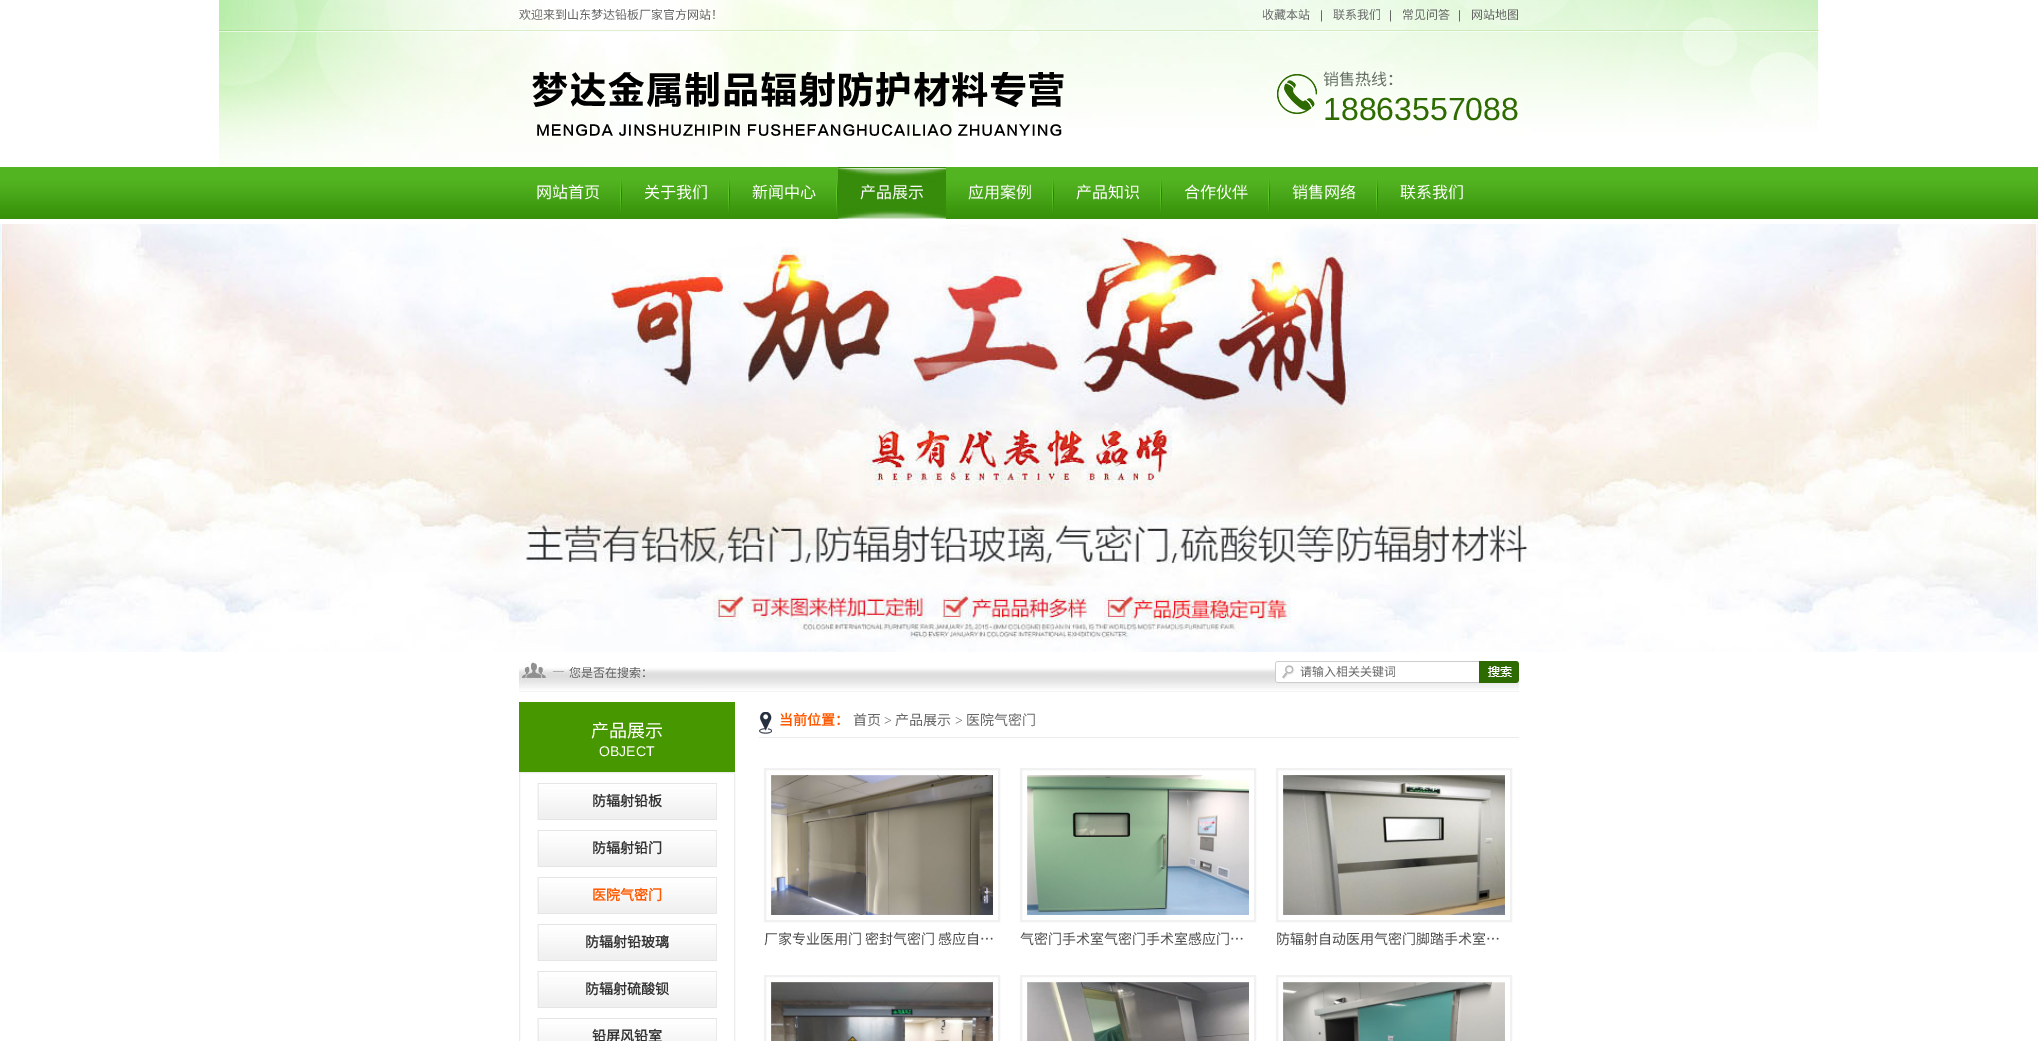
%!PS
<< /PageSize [2038 1041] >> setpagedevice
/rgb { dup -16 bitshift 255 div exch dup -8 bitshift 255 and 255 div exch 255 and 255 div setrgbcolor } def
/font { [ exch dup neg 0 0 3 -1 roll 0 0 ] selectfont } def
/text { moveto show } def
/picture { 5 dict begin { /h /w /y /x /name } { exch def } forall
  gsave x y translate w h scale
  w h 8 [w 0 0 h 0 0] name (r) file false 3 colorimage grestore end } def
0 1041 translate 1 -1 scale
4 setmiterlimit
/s1 { /NotoSansCJKSC-Regular 12 font 16#666666 rgb } def
/s2 { /LiberationSans-Regular 12 font 16#666666 rgb } def
/s3 { /NotoSansCJKSC-Regular 16 font 16#657065 rgb } def
/s4 { /LiberationSans-Regular 32 font 16#2D6B00 rgb } def
/s5 { /NotoSansCJKSC-Regular 16 font 16#FFFFFF rgb } def
/s6 { /NotoSansCJKSC-Regular 12 font 16#5F5F5F rgb } def
/s7 { /NotoSansCJKSC-Regular 18 font 16#FFFFFF rgb } def
/s8 { /LiberationSans-Regular 14 font 16#FFFFFF rgb } def
/s9 { /NotoSansCJKSC-Bold 14 font 16#333333 rgb } def
/s10 { /NotoSansCJKSC-Bold 14 font 16#FF5A00 rgb } def
/s11 { /NotoSansCJKSC-Regular 14 font 16#666666 rgb } def
/s12 { /LiberationSerif-Regular 14 font 16#666666 rgb } def
/s13 { /NotoSansCJKSC-Regular 14 font 16#4C4C4C rgb } def
16#FFFFFF rgb
0 0 2038 1041 rectfill
(pic1.raw) 219 0 1600 167 picture
s1
(欢迎来到山东梦达铅板厂家官方网站！) 519 19 text
(收藏本站) 1262 19 text
s2
(|) 1320 19 text
s1
(联系我们) 1333 19 text
s2
(|) 1389 19 text
s1
(常见问答) 1402 19 text
s2
(|) 1458 19 text
s1
(网站地图) 1471 19 text
(pic2.raw) 532 71 532 65 picture
(pic3.raw) 1277 74 40 40 picture
s3
(销售热线：) 1323 85 text
s4
(18863557088) 1323 120 text
(pic4.raw) 0 167 2038 52 picture
(pic5.raw) 620 180 2 32 picture
s5
(网站首页) 536 198 text
(pic5.raw) 728 180 2 32 picture
(关于我们) 644 198 text
(pic5.raw) 836 180 2 32 picture
(新闻中心) 752 198 text
(pic6.raw) 838 167 108 52 picture
(产品展示) 860 198 text
(pic5.raw) 1052 180 2 32 picture
(应用案例) 968 198 text
(pic5.raw) 1160 180 2 32 picture
(产品知识) 1076 198 text
(pic5.raw) 1268 180 2 32 picture
(合作伙伴) 1184 198 text
(pic5.raw) 1376 180 2 32 picture
(销售网络) 1292 198 text
(联系我们) 1400 198 text
(pic7.raw) 0 224 2038 428 picture
(pic8.raw) 519 661 1000 31 picture
s6
(您是否在搜索：) 569 677 text
(pic9.raw) 1275 661 244 22 picture
s1
(请输入相关关键词) 1300 676 text
16#479700 rgb
519 702 216 70 rectfill
s7
(产品展示) 591 737 text
s8
(OBJECT) 599 756 text
16#ECECEC rgb
519.5 772.5 215 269 rectstroke
(pic10.raw) 537 783 180 37 picture
s9
(防辐射铅板) 592 806 text
(pic10.raw) 537 830 180 37 picture
(防辐射铅门) 592 853 text
(pic10.raw) 537 877 180 37 picture
s10
(医院气密门) 592 900 text
(pic10.raw) 537 924 180 37 picture
s9
(防辐射铅玻璃) 585 947 text
(pic10.raw) 537 971 180 37 picture
(防辐射硫酸钡) 585 994 text
(pic11.raw) 537 1018 180 23 picture
(铅屏风铅室) 592 1041 text
(pic12.raw) 759 712 13 22 picture
16#ECECEC rgb
759 737 760 1 rectfill
s10
(当前位置：) 779 725 text
s11
(首页) 853 725 text
s12
(>) 884 725 text
s11
(产品展示) 895 725 text
s12
(>) 955 725 text
s11
(医院气密门) 966 725 text
16#F1F1F1 rgb
2 setlinewidth
765 769 234 152 rectstroke
(pic13.raw) 771 775 222 140 picture
s13
(厂家专业医用门 密封气密门 感应自…) 764 944 text
16#F1F1F1 rgb
1021 769 234 152 rectstroke
(pic14.raw) 1027 775 222 140 picture
s13
(气密门手术室气密门手术室感应门…) 1020 944 text
16#F1F1F1 rgb
1277 769 234 152 rectstroke
(pic15.raw) 1283 775 222 140 picture
s13
(防辐射自动医用气密门脚踏手术室…) 1276 944 text
16#F1F1F1 rgb
765 976 234 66 rectstroke
(pic16.raw) 771 982 222 59 picture
1021 976 234 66 rectstroke
(pic17.raw) 1027 982 222 59 picture
1277 976 234 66 rectstroke
(pic18.raw) 1283 982 222 59 picture
showpage
